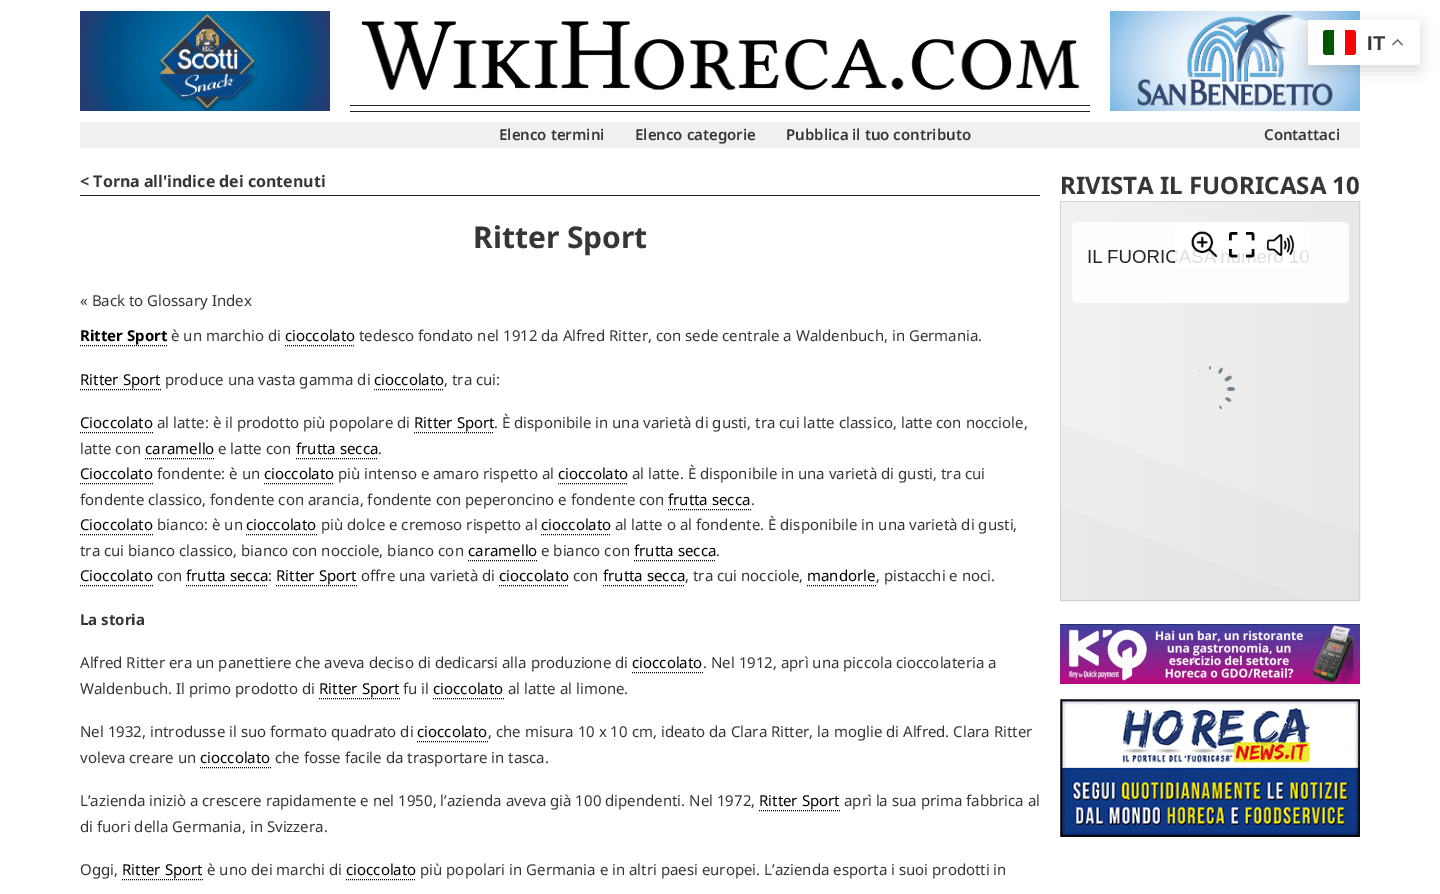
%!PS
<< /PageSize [1440 894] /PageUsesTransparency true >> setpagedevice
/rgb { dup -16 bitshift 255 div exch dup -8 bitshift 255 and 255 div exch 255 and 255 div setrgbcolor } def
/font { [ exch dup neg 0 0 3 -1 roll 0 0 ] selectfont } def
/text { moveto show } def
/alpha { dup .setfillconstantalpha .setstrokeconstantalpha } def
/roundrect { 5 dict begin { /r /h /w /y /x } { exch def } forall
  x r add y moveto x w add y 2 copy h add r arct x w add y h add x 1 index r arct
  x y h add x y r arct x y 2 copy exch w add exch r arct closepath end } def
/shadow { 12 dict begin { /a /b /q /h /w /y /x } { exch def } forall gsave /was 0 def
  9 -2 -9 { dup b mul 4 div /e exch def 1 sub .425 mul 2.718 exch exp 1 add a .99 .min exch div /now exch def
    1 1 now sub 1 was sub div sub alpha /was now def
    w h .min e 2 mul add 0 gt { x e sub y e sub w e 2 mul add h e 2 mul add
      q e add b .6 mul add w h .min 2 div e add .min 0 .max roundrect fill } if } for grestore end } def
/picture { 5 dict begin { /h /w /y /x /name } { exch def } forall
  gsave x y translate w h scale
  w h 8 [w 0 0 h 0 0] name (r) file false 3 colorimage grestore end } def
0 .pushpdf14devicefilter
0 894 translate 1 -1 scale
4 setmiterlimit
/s1 { /LiberationSans-Bold 20 font 16#363636 rgb } def
/s2 { /NotoSans-SemiBold 15 font 16#363636 rgb } def
/s3 { /NotoSans-Bold 16 font 16#363636 rgb } def
/s4 { /NotoSans-Bold 30 font 16#363636 rgb } def
/s5 { /NotoSans-Regular 15 font 16#363636 rgb } def
/s6 { /NotoSans-Bold 15 font 16#000000 rgb } def
/s7 { /NotoSans-Regular 15 font 16#000000 rgb } def
/s8 { /NotoSans-Bold 15 font 16#363636 rgb } def
/s9 { /NotoSans-Bold 24 font 16#363636 rgb } def
16#FFFFFF rgb
0 0 1440 894 rectfill
(pic4.raw) 1110 11 250 100 picture
16#000000 rgb
1308 25 112 45 2 7.5 0.15 shadow
16#FFFFFF rgb
1308 20 112 45 2 roundrect fill
16#005700 rgb
1326 30 moveto 1334 30 lineto 1334 55 lineto 1326 55 lineto 1324.5 55 1323 53.5 1323 52 curveto 1323 33 lineto 1323 31.5 1324.5 30 1326 30 curveto closepath fill
16#FC0000 rgb
1345 30 moveto 1353 30 lineto 1354.5 30 1356 31.5 1356 33 curveto 1356 52 lineto 1356 53.5 1354.5 55 1353 55 curveto 1345 55 lineto closepath fill
s1
(IT) 1367 50 text
(pic1.raw) 1392 39 11 7 picture
(pic2.raw) 80 11 250 100 picture
(pic3.raw) 361 21 719 69 picture
16#212121 rgb
350 105 740 1 rectfill
350 111 740 1 rectfill
16#F0F0F0 rgb
80 122 1280 26 rectfill
s2
(Elenco termini) 499 140 text
(Elenco categorie) 635 140 text
(Pubblica il tuo contributo) 786 140 text
(Contattaci) 1264 140 text
s3
(< Torna all'indice dei contenuti) 80 187 text
16#212121 rgb
80 195 960 1 rectfill
s4
(Ritter Sport) 473 248 text
s5
(« Back to Glossary Index) 80 306 text
s6
(Ritter Sport) 80 341 text
[1 1] 0 setdash
80 345.5 moveto 167 345.5 lineto stroke
s5
(è un marchio di) 171 341 text
s7
(cioccolato) 285 341 text
285 345.5 moveto 355 345.5 lineto stroke
s5
(tedesco fondato nel 1912 da Alfred Ritter, con sede centrale a Waldenbuch, in Germania.) 359 341 text
s7
(Ritter Sport) 80 385 text
80 389.5 moveto 161 389.5 lineto stroke
s5
(produce una vasta gamma di) 165 385 text
s7
(cioccolato) 374 385 text
374 389.5 moveto 444 389.5 lineto stroke
s5
(, tra cui:) 444 385 text
s7
(Cioccolato) 80 428 text
80 432.5 moveto 153 432.5 lineto stroke
s5
(al latte: è il prodotto più popolare di) 157 428 text
s7
(Ritter Sport) 414 428 text
414 432.5 moveto 494 432.5 lineto stroke
s5
(. È disponibile in una varietà di gusti, tra cui latte classico, latte con nocciole,) 494 428 text
(latte con) 80 454 text
s7
(caramello) 145 454 text
145 458.5 moveto 214 458.5 lineto stroke
s5
(e latte con) 218 454 text
s7
(frutta secca) 296 454 text
296 458.5 moveto 378 458.5 lineto stroke
s5
(.) 378 454 text
s7
(Cioccolato) 80 479 text
80 483.5 moveto 153 483.5 lineto stroke
s5
(fondente: è un) 157 479 text
s7
(cioccolato) 264 479 text
264 483.5 moveto 334 483.5 lineto stroke
s5
(più intenso e amaro rispetto al) 338 479 text
s7
(cioccolato) 558 479 text
558 483.5 moveto 628 483.5 lineto stroke
s5
(al latte. È disponibile in una varietà di gusti, tra cui) 632 479 text
(fondente classico, fondente con arancia, fondente con peperoncino e fondente con) 80 505 text
s7
(frutta secca) 668 505 text
668 509.5 moveto 751 509.5 lineto stroke
s5
(.) 751 505 text
s7
(Cioccolato) 80 530 text
80 534.5 moveto 153 534.5 lineto stroke
s5
(bianco: è un) 157 530 text
s7
(cioccolato) 246 530 text
246 534.5 moveto 317 534.5 lineto stroke
s5
(più dolce e cremoso rispetto al) 321 530 text
s7
(cioccolato) 541 530 text
541 534.5 moveto 611 534.5 lineto stroke
s5
(al latte o al fondente. È disponibile in una varietà di gusti,) 615 530 text
(tra cui bianco classico, bianco con nocciole, bianco con) 80 556 text
s7
(caramello) 468 556 text
468 560.5 moveto 537 560.5 lineto stroke
s5
(e bianco con) 541 556 text
s7
(frutta secca) 634 556 text
634 560.5 moveto 716 560.5 lineto stroke
s5
(.) 716 556 text
s7
(Cioccolato) 80 581 text
80 585.5 moveto 153 585.5 lineto stroke
s5
(con) 157 581 text
s7
(frutta secca) 186 581 text
186 585.5 moveto 268 585.5 lineto stroke
s5
(:) 268 581 text
s7
(Ritter Sport) 276 581 text
276 585.5 moveto 357 585.5 lineto stroke
s5
(offre una varietà di) 361 581 text
s7
(cioccolato) 499 581 text
499 585.5 moveto 569 585.5 lineto stroke
s5
(con) 573 581 text
s7
(frutta secca) 603 581 text
603 585.5 moveto 685 585.5 lineto stroke
s5
(, tra cui nocciole,) 685 581 text
s7
(mandorle) 807 581 text
807 585.5 moveto 876 585.5 lineto stroke
s5
(, pistacchi e noci.) 876 581 text
s8
(La storia) 80 625 text
s5
(Alfred Ritter era un panettiere che aveva deciso di dedicarsi alla produzione di) 80 668 text
s7
(cioccolato) 632 668 text
632 672.5 moveto 703 672.5 lineto stroke
s5
(. Nel 1912, aprì una piccola cioccolateria a) 703 668 text
(Waldenbuch. Il primo prodotto di) 80 694 text
s7
(Ritter Sport) 319 694 text
319 698.5 moveto 400 698.5 lineto stroke
s5
(fu il) 403 694 text
s7
(cioccolato) 433 694 text
433 698.5 moveto 504 698.5 lineto stroke
s5
(al latte al limone.) 508 694 text
(Nel 1932, introdusse il suo formato quadrato di) 80 737 text
s7
(cioccolato) 417 737 text
417 741.5 moveto 488 741.5 lineto stroke
s5
(, che misura 10 x 10 cm, ideato da Clara Ritter, la moglie di Alfred. Clara Ritter) 488 737 text
(voleva creare un) 80 763 text
s7
(cioccolato) 200 763 text
200 767.5 moveto 271 767.5 lineto stroke
s5
(che fosse facile da trasportare in tasca.) 275 763 text
(L’azienda iniziò a crescere rapidamente e nel 1950, l’azienda aveva già 100 dipendenti. Nel 1972,) 80 806 text
s7
(Ritter Sport) 759 806 text
759 810.5 moveto 840 810.5 lineto stroke
s5
(aprì la sua prima fabbrica al) 844 806 text
(di fuori della Germania, in Svizzera.) 80 832 text
(Oggi,) 80 875 text
s7
(Ritter Sport) 122 875 text
122 879.5 moveto 203 879.5 lineto stroke
s5
(è uno dei marchi di) 207 875 text
s7
(cioccolato) 346 875 text
346 879.5 moveto 416 879.5 lineto stroke
s5
(più popolari in Germania e in altri paesi europei. L’azienda esporta i suoi prodotti in) 420 875 text
s9
(RIVISTA IL FUORICASA 10) 1060 194 text
16#D3D3D3 rgb
[] 0 setdash
1060.5 201.5 299 399 rectstroke
(pic5.raw) 1061 202 298 398 picture
(pic6.raw) 1060 624 300 60 picture
(pic7.raw) 1060 699 300 138 picture
.poppdf14devicefilter showpage
